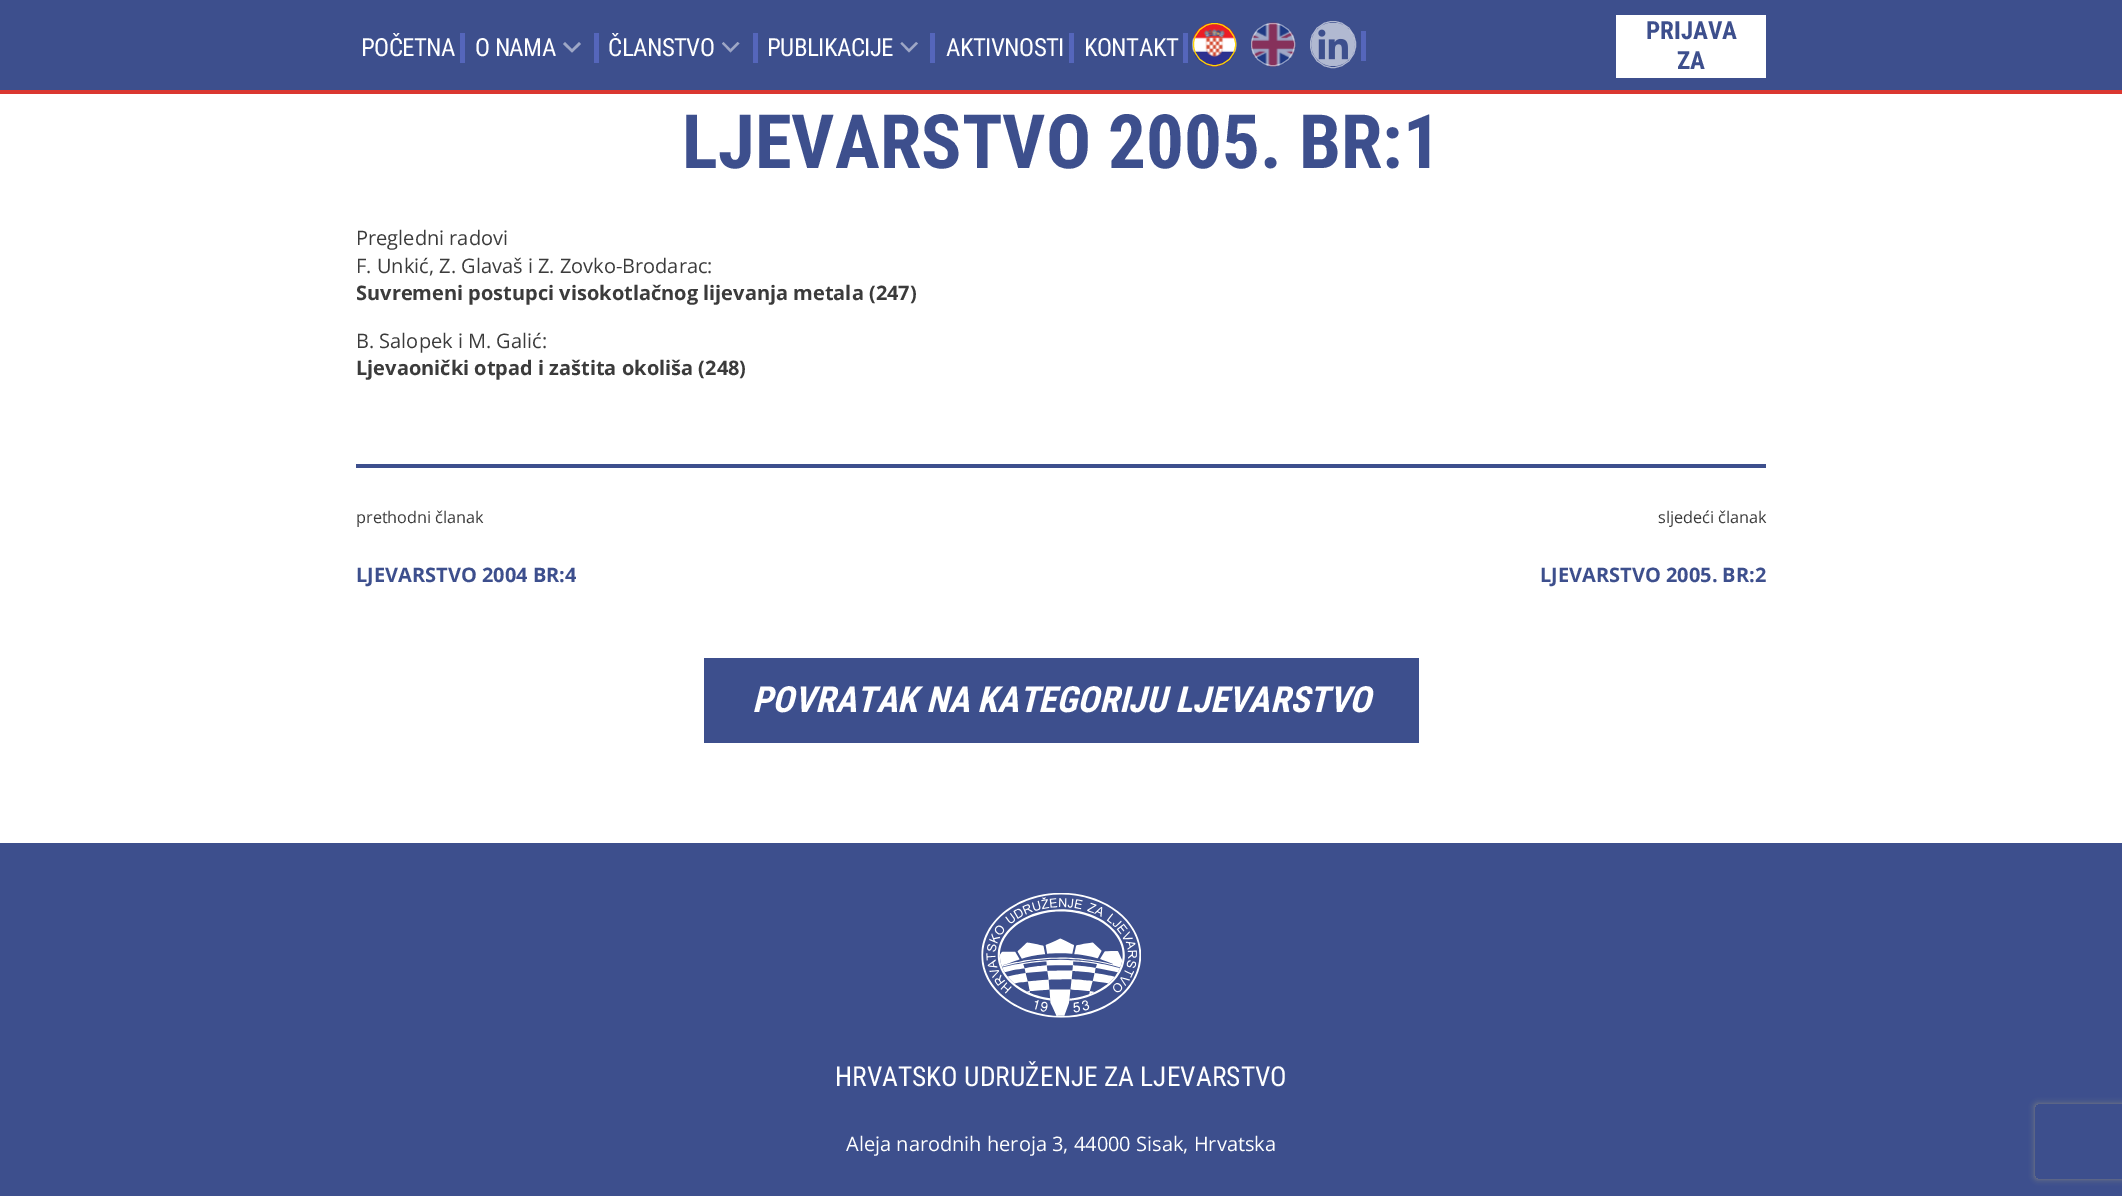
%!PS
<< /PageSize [2122 1196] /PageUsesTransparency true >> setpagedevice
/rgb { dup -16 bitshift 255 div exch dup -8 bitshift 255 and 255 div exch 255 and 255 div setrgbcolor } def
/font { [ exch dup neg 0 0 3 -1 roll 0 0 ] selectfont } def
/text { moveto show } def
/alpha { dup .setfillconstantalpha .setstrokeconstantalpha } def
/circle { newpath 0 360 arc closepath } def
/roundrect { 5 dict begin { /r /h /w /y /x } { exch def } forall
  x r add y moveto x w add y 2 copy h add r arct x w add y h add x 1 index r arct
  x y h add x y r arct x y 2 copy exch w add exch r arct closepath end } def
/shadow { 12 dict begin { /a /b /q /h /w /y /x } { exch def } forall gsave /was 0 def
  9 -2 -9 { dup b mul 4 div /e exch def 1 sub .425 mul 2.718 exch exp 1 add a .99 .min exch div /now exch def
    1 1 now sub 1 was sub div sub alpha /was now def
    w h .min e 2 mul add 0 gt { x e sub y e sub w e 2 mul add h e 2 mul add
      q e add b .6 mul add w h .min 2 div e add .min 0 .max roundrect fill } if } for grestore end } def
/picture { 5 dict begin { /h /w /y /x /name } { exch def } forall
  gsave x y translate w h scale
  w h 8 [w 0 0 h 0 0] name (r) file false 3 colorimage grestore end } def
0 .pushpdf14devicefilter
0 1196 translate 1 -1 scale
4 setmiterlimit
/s1 { /RobotoCondensed-Bold 25 font 16#3D4F8D rgb } def
/s2 { /RobotoCondensed-Bold 75 font 16#3D4F8D rgb } def
/s3 { /OpenSans-Regular 20 font 16#3B3B3B rgb } def
/s4 { /OpenSans-Bold 20 font 16#3B3B3B rgb } def
/s5 { /OpenSans-Regular 16.25 font 16#3B3B3B rgb } def
/s6 { /OpenSans-Bold 20 font 16#3D4F8D rgb } def
/s7 { /RobotoCondensed-BoldItalic 36 font 16#FFFFFF rgb } def
/s8 { /RobotoCondensed-Regular 27.5 font 16#FFFFFF rgb } def
/s9 { /OpenSans-Regular 20 font 16#FFFFFF rgb } def
16#FFFFFF rgb
0 0 2122 1196 rectfill
16#3D4F8D rgb
0 0 2122 90 rectfill
16#DA3731 rgb
0 90 2122 4 rectfill
16#5566BB rgb
460 33 5 30 rectfill
/RobotoCondensed-Regular 25 font
16#FFFFFF rgb
361 56 moveto -0.6 0 (POČETNA) ashow
16#5566BB rgb
594 33 5 30 rectfill
16#FFFFFF rgb
475 56 moveto -0.6 0 (O NAMA) ashow
16#9EA7C6 rgb
581 44 moveto 572 52.5 lineto 572 49 lineto 579 42 lineto closepath 572 52.5 moveto 563 44 lineto 565 42 lineto 572 49 lineto closepath fill
16#5566BB rgb
753 33 5 30 rectfill
16#FFFFFF rgb
608 56 moveto -0.6 0 (ČLANSTVO) ashow
16#9EA7C6 rgb
739.5 43.5 moveto 730.5 52.5 lineto 730.5 49 lineto 737.5 42 lineto closepath fill
0.5 alpha
16#FFFFFF rgb
730.5 52.5 moveto 722 43.5 lineto 723.5 42 lineto 730.5 49 lineto closepath fill
1 alpha
16#5566BB rgb
930 33 5 30 rectfill
16#FFFFFF rgb
767 56 moveto -0.6 0 (PUBLIKACIJE) ashow
16#9EA7C6 rgb
918 43.5 moveto 909 52.5 lineto 909 49 lineto 916 42 lineto closepath 909 52.5 moveto 900.5 43.5 lineto 902 42 lineto 909 49 lineto closepath fill
16#5566BB rgb
1069 33 5 30 rectfill
16#FFFFFF rgb
946 56 moveto -0.6 0 (AKTIVNOSTI) ashow
16#5566BB rgb
1183 33 5 30 rectfill
16#FFFFFF rgb
1084 56 moveto -0.6 0 (KONTAKT) ashow
(pic1.raw) 1192 22 45 45 picture
16#FFD700 rgb
1214.5 44.5 21 circle stroke
(pic2.raw) 1251 22 45 45 picture
0.5 alpha
16#FFFFFF rgb
1251.5 23.5 43 42 21 roundrect stroke
1 alpha
16#5566BB rgb
1361 31 5 30 rectfill
(pic3.raw) 1311 23 44 43 picture
0.6 alpha
16#FFFFFF rgb
1310.5 21.5 45 46 22.5 roundrect stroke
1 alpha
1616 15 150 63 rectfill
s1
(PRIJAVA) 1646 39 text
(ZA) 1677 69 text
s2
(LJEVARSTVO 2005. BR:1) 682 168 text
s3
(Pregledni radovi) 356 245 text
(F. Unkić, Z. Glavaš i Z. Zovko-Brodarac:) 356 273 text
s4
(Suvremeni postupci visokotlačnog lijevanja metala \(247\)) 356 300 text
s3
(B. Salopek i M. Galić:) 356 348 text
s4
(Ljevaonički otpad i zaštita okoliša \(248\)) 356 375 text
16#3D4F8D rgb
356 464 1410 4 rectfill
s5
(prethodni članak) 356 523 text
s6
(LJEVARSTVO 2004 BR:4) 356 582 text
s5
(sljedeći članak) 1658 523 text
s6
(LJEVARSTVO 2005. BR:2) 1540 582 text
704 658 715 85 rectfill
s7
(POVRATAK NA KATEGORIJU LJEVARSTVO) 752 712 text
16#3D4F8D rgb
0 843 2122 353 rectfill
(pic4.raw) 981 893 160 125 picture
s8
(HRVATSKO UDRUŽENJE ZA LJEVARSTVO) 835 1086 text
s9
(Aleja narodnih heroja 3, 44000 Sisak, Hrvatska) 846 1151 text
gsave
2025 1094 moveto 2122 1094 lineto 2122 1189 lineto 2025 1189 lineto closepath 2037.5 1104 moveto 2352.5 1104 lineto 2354 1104 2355 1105 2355 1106.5 curveto 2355 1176.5 lineto 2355 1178 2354 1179 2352.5 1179 curveto 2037.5 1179 lineto 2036 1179 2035 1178 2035 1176.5 curveto 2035 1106.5 lineto 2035 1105 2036 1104 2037.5 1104 curveto closepath eoclip newpath
16#808080 rgb
2035 1104 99 75 2.5 3 1 shadow
grestore
.poppdf14devicefilter showpage
